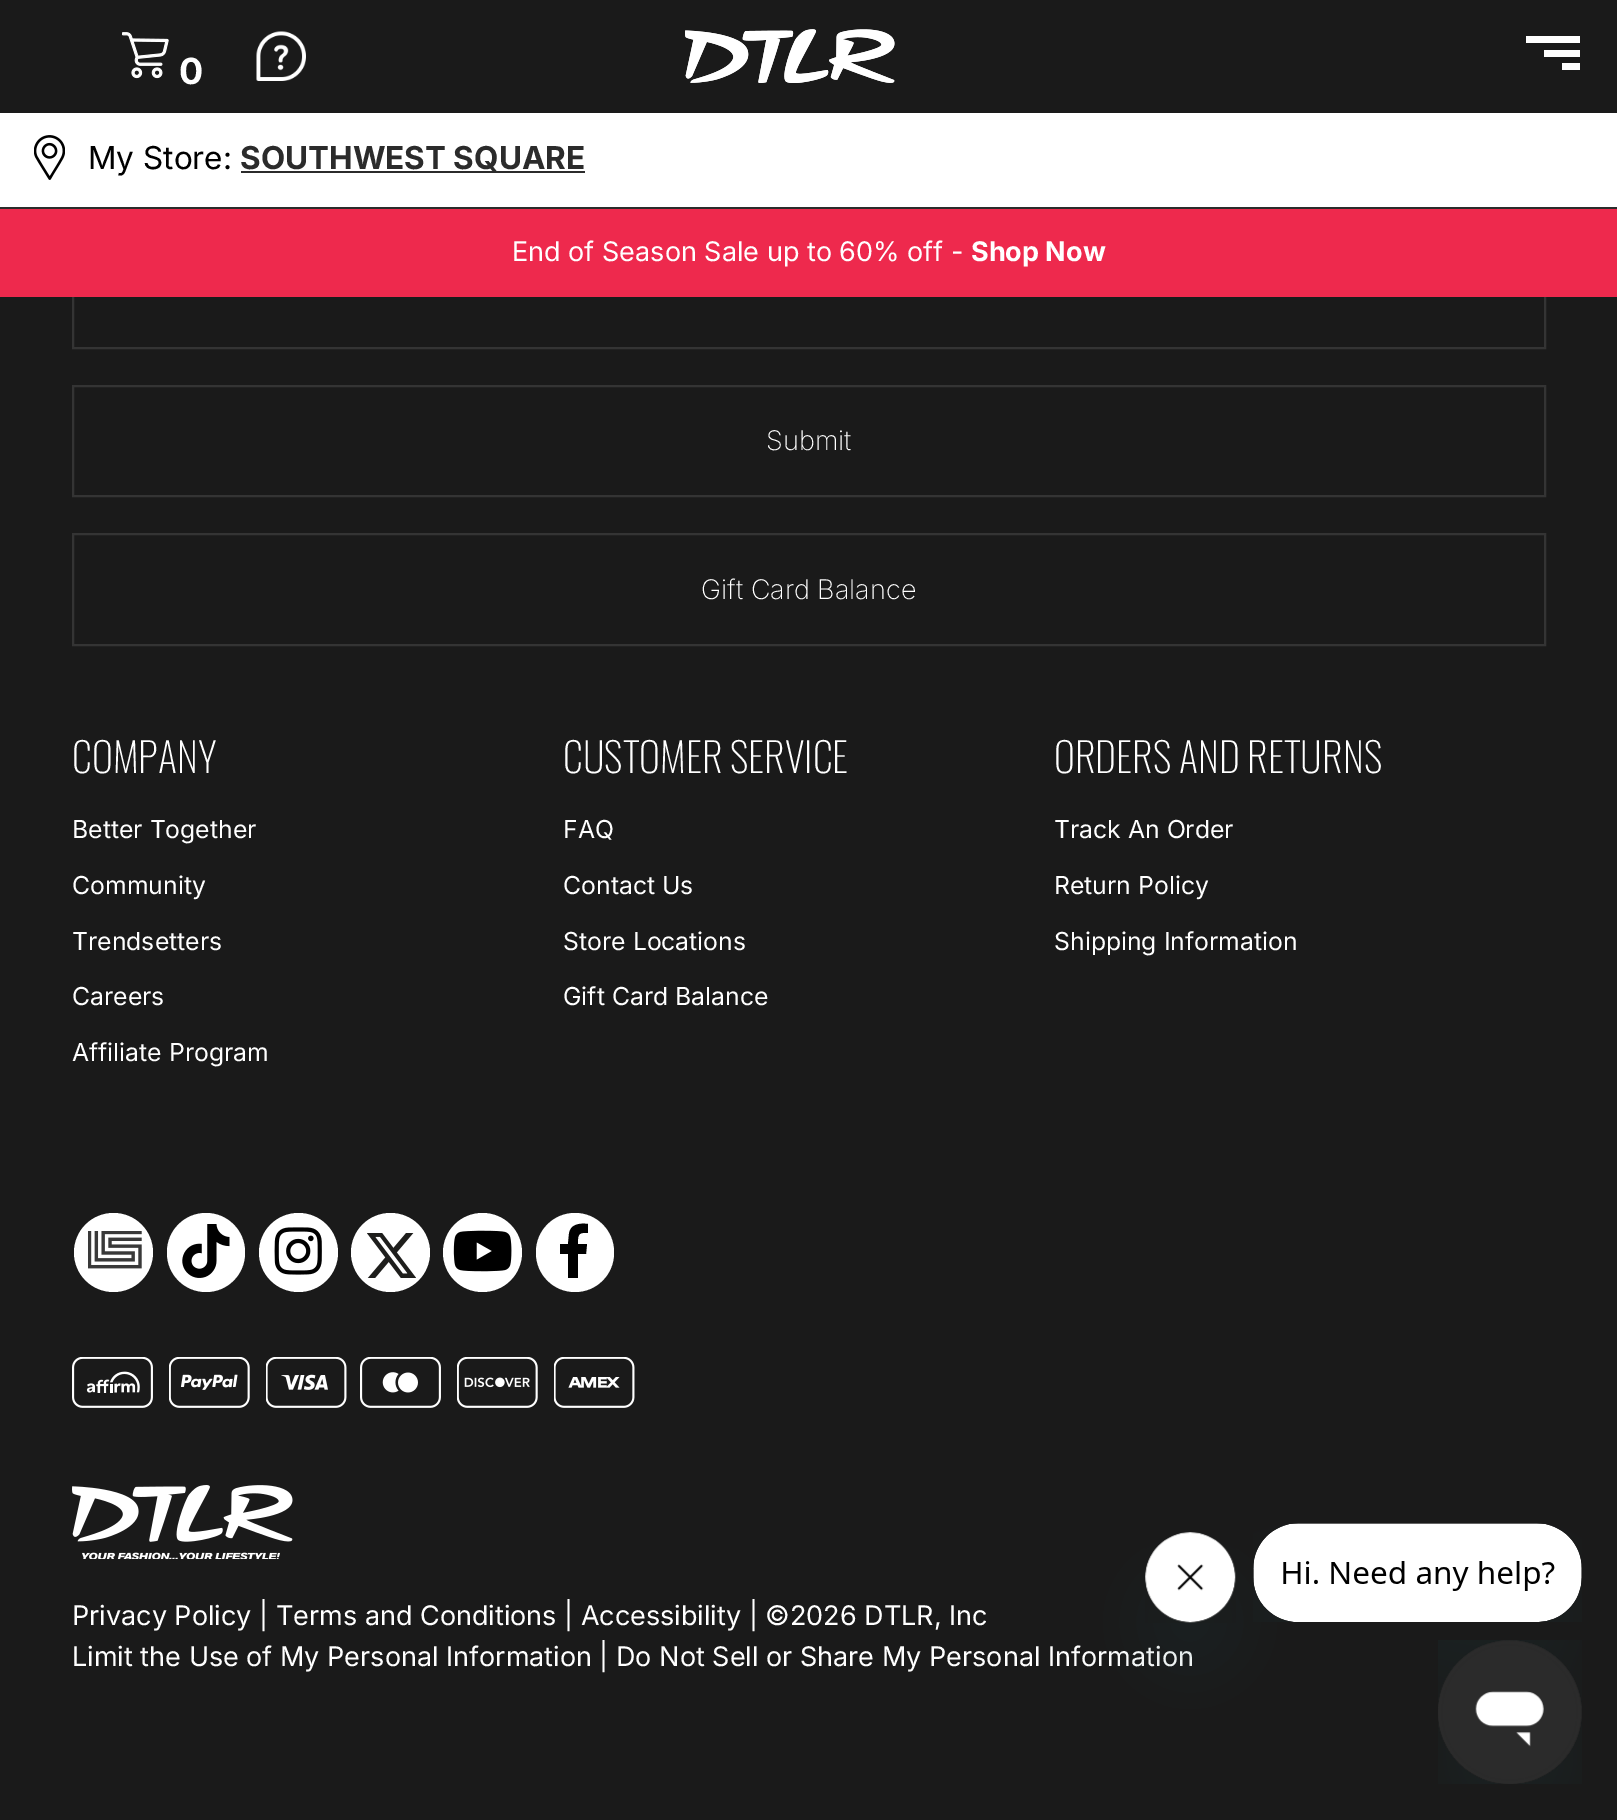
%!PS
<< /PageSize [1617 1820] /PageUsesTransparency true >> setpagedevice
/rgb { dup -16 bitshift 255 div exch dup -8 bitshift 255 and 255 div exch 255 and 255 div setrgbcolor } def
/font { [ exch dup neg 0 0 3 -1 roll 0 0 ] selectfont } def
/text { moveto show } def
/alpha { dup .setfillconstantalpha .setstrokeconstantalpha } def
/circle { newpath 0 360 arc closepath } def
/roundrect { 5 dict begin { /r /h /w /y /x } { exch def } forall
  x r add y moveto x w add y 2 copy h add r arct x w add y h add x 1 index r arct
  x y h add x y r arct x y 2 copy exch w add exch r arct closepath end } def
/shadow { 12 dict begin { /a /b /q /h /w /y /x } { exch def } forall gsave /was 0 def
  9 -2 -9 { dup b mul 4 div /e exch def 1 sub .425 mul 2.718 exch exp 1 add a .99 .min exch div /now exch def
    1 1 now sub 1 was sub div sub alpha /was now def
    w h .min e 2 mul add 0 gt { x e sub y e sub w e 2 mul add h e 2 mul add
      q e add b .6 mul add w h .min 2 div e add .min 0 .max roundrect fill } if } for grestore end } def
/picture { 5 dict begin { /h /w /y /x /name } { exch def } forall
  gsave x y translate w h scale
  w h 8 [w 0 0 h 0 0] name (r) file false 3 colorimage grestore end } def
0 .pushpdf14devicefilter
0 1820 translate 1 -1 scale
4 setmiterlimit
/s1 { /Inter-Bold 36 font 16#FFFFFF rgb } def
/s2 { /Inter-Regular 31.5 font 16#000000 rgb } def
/s3 { /Inter-Bold 31.5 font 16#2B2B2B rgb } def
/s4 { /Inter-Regular 27 font 16#FFFFFF rgb } def
/s5 { /Inter-Bold 27 font 16#FFFFFF rgb } def
/s6 { /Inter-ExtraLight 27 font 16#FFFFFF rgb } def
/s7 { /Oswald-ExtraLight 40.5 font 16#FFFFFF rgb } def
/s8 { /Inter-Regular 24.75 font 16#FFFFFF rgb } def
16#1A1A1A rgb
0 0 1617 1820 rectfill
16#FFFFFF rgb
0 113 1617 94 rectfill
(pic1.raw) 122 32 47 47 picture
s1
(0) 179 84 text
(pic2.raw) 256 31 50 50 picture
(pic3.raw) 685 29 210 54 picture
1526 36 54 7 rectfill
1544 50 36 7 rectfill
1562 63 18 7 rectfill
16#2B2B2B rgb
0 207 1617 2 rectfill
(pic4.raw) 34 135 31 45 picture
s2
(My Store:) 88 169 text
s3
(SOUTHWEST SQUARE) 240 169 text
241 171 344 2 rectfill
16#343434 rgb
2 setlinewidth
73 237 1472 111 rectstroke
16#EE294D rgb
0 209 1617 88 rectfill
s4
(End of Season Sale up to 60% off -) 512 261 text
s5
(Shop Now) 971 261 text
16#343434 rgb
73 386 1472 110 rectstroke
s6
(Submit) 766 450 text
16#343434 rgb
73 534 1472 111 rectstroke
s6
(Gift Card Balance) 701 599 text
s7
(COMPANY) 72 773 text
s8
(Better Together) 72 838 text
(Community) 72 894 text
(Trendsetters) 72 950 text
(Careers) 72 1005 text
(Affiliate Program) 72 1061 text
s7
(CUSTOMER SERVICE) 563 773 text
s8
(FAQ) 563 838 text
(Contact Us) 563 894 text
(Store Locations) 563 950 text
(Gift Card Balance) 563 1005 text
s7
(ORDERS AND RETURNS) 1054 773 text
s8
(Track An Order) 1054 838 text
(Return Policy) 1054 894 text
(Shipping Information) 1054 950 text
113.5 1252.5 39.5 circle fill
(pic5.raw) 88 1231 54 38 picture
167 1213 78 79 39 roundrect fill
(pic6.raw) 182 1224 48 54 picture
298.5 1252.5 39.5 circle fill
(pic7.raw) 274 1227 48 48 picture
390.5 1252.5 39.5 circle fill
(pic8.raw) 367 1233 49 45 picture
482.5 1252.5 39.5 circle fill
(pic9.raw) 453 1230 59 42 picture
536 1213 78 79 39 roundrect fill
16#000000 rgb
583 1233 moveto 577 1233 578 1240 578 1244 curveto 587 1244 lineto 586 1254 lineto 578 1254 lineto 578 1278 lineto 568 1278 lineto 568 1254 lineto 560 1254 lineto 560 1244 lineto 568 1244 lineto 569 1234 lineto 570 1224 580 1223 588 1224 curveto 588 1233 lineto closepath fill
(pic10.raw) 72 1357 81 51 picture
(pic11.raw) 169 1357 81 51 picture
(pic12.raw) 266 1357 81 51 picture
(pic13.raw) 360 1357 81 51 picture
(pic14.raw) 457 1357 81 51 picture
(pic15.raw) 554 1357 81 51 picture
(pic16.raw) 72 1485 221 74 picture
s4
(Privacy Policy | Terms and Conditions | Accessibility | ©2026 DTLR, Inc) 72 1625 text
(Limit the Use of My Personal Information | Do Not Sell or Share My Personal Information) 72 1666 text
16#17494D rgb
1145 1577 90 90 45 34 0.15 shadow
(pic17.raw) 1145 1532 91 91 picture
(pic18.raw) 1253 1523 329 99 picture
(pic19.raw) 1438 1640 144 144 picture
.poppdf14devicefilter showpage
